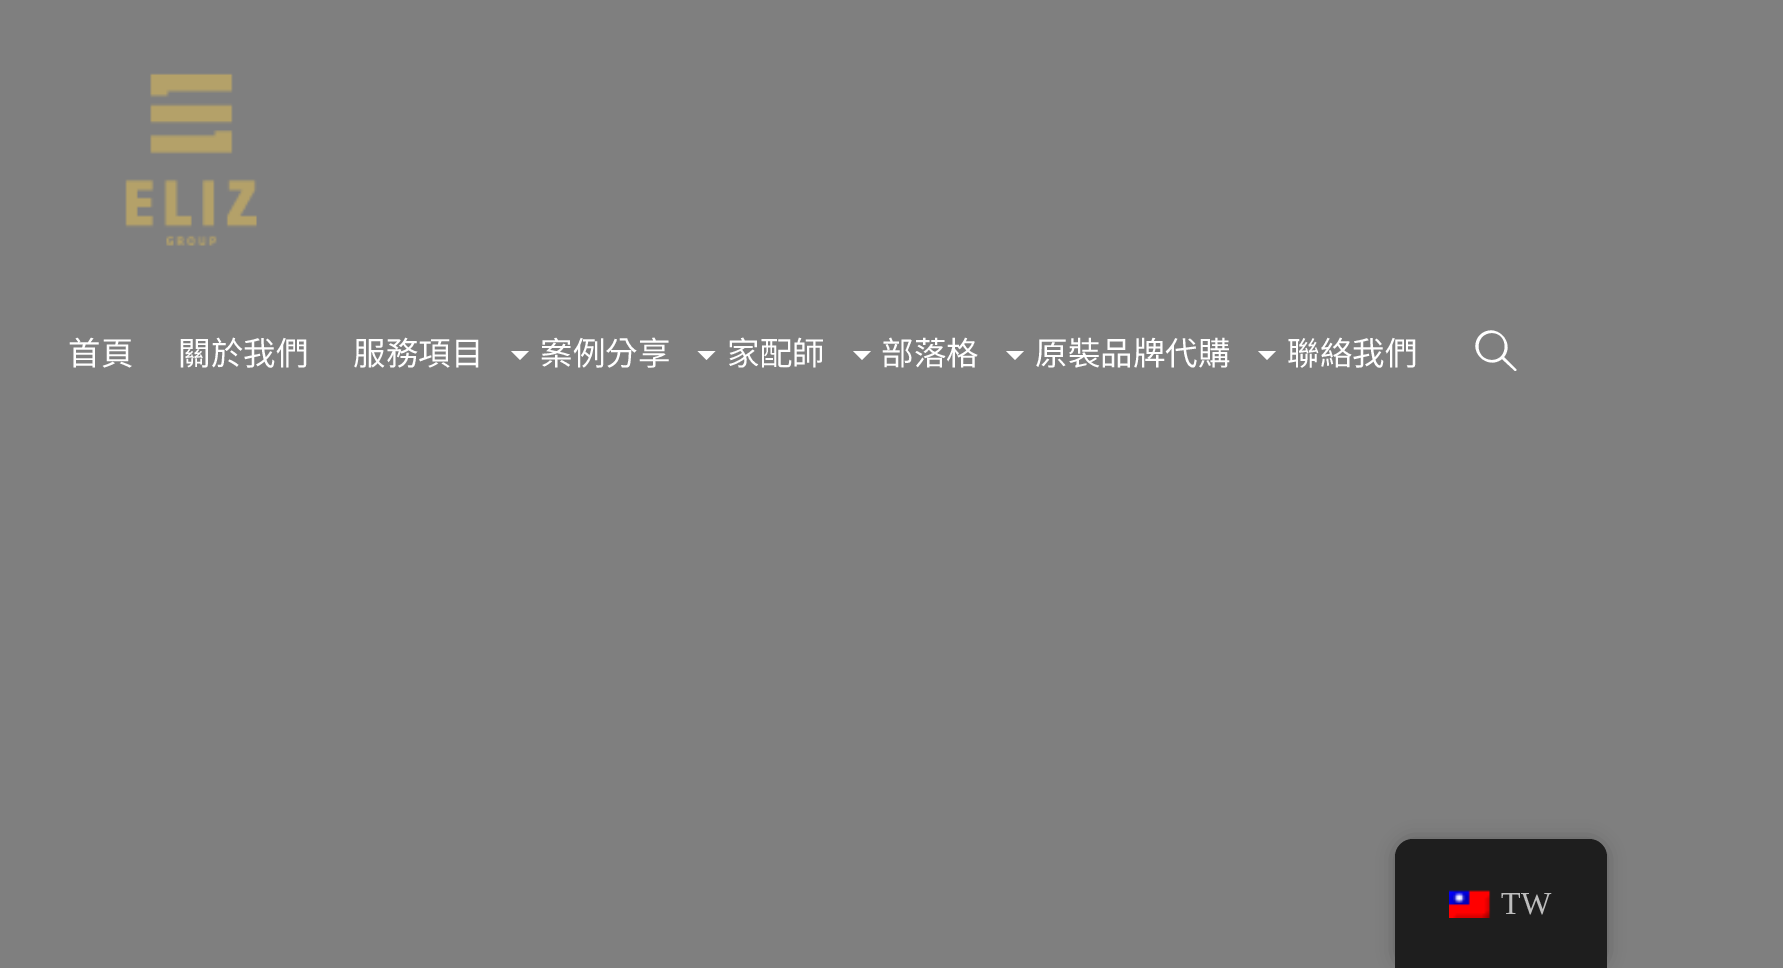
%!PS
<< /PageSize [1783 968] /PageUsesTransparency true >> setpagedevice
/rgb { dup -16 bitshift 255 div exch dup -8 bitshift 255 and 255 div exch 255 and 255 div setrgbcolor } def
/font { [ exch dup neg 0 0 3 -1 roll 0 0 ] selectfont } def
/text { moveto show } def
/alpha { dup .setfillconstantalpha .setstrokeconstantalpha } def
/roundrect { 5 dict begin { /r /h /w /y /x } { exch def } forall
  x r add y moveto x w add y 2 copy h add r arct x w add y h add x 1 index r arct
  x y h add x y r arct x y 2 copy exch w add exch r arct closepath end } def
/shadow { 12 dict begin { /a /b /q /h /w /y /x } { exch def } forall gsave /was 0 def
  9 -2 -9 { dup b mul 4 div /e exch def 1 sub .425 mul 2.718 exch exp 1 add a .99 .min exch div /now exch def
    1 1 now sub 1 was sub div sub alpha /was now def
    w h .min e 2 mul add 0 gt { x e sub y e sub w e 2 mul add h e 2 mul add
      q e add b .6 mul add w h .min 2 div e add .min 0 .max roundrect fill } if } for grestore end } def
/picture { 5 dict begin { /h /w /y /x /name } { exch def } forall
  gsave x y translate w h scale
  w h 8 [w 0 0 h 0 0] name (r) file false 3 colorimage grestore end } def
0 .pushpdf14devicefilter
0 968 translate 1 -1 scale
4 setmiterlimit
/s1 { /NotoSansCJKTC-Regular 32.5 font 16#FFFFFF rgb } def
/s2 { /LiberationSerif-Regular 32 font 16#BDBDBD rgb } def
16#7F7F7F rgb
0 0 1783 968 rectfill
(pic1.raw) 125 73 132 173 picture
s1
(首頁) 68 365 text
(關於我們) 178 365 text
(服務項目) 353 365 text
511 351 moveto 529 351 lineto 520 360 lineto closepath fill
(案例分享) 540 365 text
697.5 351 moveto 715.5 351 lineto 706.5 360 lineto closepath fill
(家配師) 727 365 text
853 351 moveto 871 351 lineto 862 360 lineto closepath fill
(部落格) 881 365 text
1006 351 moveto 1024 351 lineto 1015 360 lineto closepath fill
(原裝品牌代購) 1035 365 text
1258 351 moveto 1276 351 lineto 1267 360 lineto closepath fill
(聯絡我們) 1287 365 text
1516 369 moveto 1517 370 1516 371 1515 371 curveto 1502 359 lineto 1487 371 1466 350 1480 335 curveto 1495 321 1516 342 1504 357 curveto closepath 1492 360 moveto 1509 360 1509 333 1492 333 curveto 1474 333 1474 360 1492 360 curveto closepath fill
16#000000 rgb
1395 839 212 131 18 9 0.25 shadow
16#1E1E1E rgb
1413 839 moveto 1589 839 lineto 1599 839 1607 847 1607 857 curveto 1607 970 lineto 1395 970 lineto 1395 857 lineto 1395 847 1403 839 1413 839 curveto closepath fill
(pic2.raw) 1449 890 42 28 picture
s2
(TW) 1501 914 text
.poppdf14devicefilter showpage
